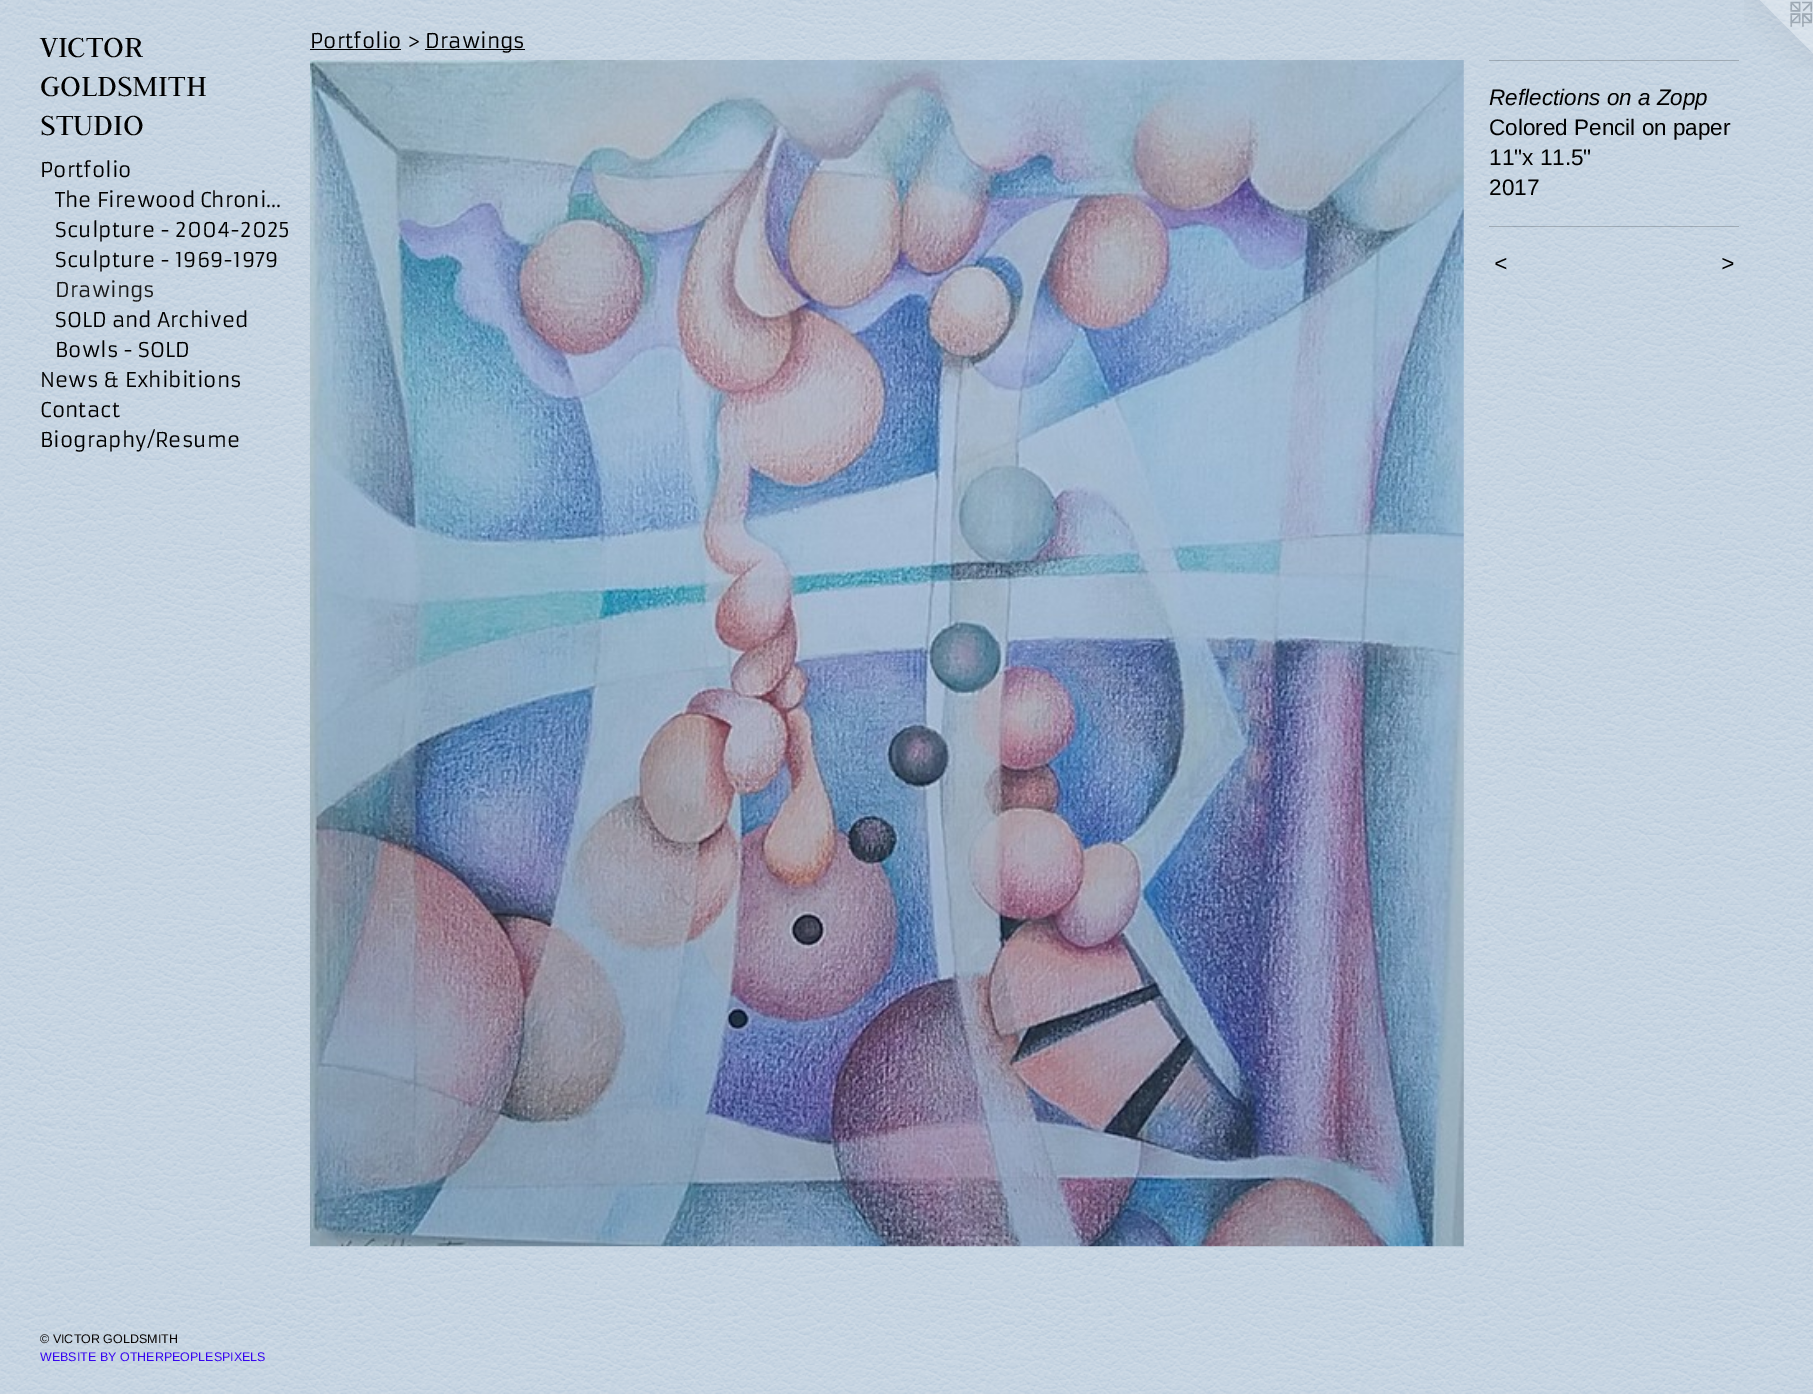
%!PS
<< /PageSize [1813 1394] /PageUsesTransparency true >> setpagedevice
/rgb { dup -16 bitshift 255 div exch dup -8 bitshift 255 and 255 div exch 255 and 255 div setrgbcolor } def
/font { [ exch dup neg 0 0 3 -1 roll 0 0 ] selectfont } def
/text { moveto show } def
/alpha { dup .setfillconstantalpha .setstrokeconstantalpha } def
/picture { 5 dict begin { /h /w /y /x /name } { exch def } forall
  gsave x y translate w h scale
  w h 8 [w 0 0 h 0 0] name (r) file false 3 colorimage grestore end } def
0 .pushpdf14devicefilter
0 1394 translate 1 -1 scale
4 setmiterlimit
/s1 { /Judson-Regular 32.5 font 16#000000 rgb } def
/s2 { /Armata-Regular 20 font 16#000000 rgb } def
/s3 { /Armata-Regular 20 font 16#1A1A1A rgb } def
/s4 { /LiberationSans-Regular 12.5 font 16#0A0605 rgb } def
/s5 { /LiberationSans-Regular 12.5 font 16#3605F0 rgb } def
/s6 { /LiberationSans-Italic 22.5 font 16#000000 rgb } def
/s7 { /LiberationSans-Regular 22.5 font 16#000000 rgb } def
16#FFFFFF rgb
0 0 1813 1394 rectfill
(pic1.raw) 0 0 1813 1394 picture
s1
(VICTOR) 40 57 text
(GOLDSMITH) 40 96 text
(STUDIO) 40 135 text
s2
(Portfolio) 40 177 text
(The Firewood Chroni…) 55 207 text
(Sculpture - 2004-2025) 55 237 text
(Sculpture - 1969-1979) 55 267 text
s3
(Drawings) 55 297 text
s2
(SOLD and Archived) 55 327 text
(Bowls - SOLD) 55 357 text
(News & Exhibitions) 40 387 text
(Contact) 40 417 text
(Biography/Resume) 40 447 text
s4
(© VICTOR GOLDSMITH) 40 1343 text
s5
(WEBSITE BY OTHERPEOPLESPIXELS) 40 1361 text
s2
(Portfolio >) 310 48 text
310 49 91 1 rectfill
425 49 100 1 rectfill
(Drawings) 425 48 text
(pic2.raw) 310 60 1154 1187 picture
0.2 alpha
16#020303 rgb
1489 60 250 1 rectfill
1 alpha
s6
(Reflections on a Zopp) 1489 105 text
s7
(Colored Pencil on paper) 1489 135 text
(11"x 11.5") 1489 165 text
(2017) 1489 195 text
0.2 alpha
16#020303 rgb
1489 226 250 1 rectfill
/LiberationSans-Italic 22.5 font
1 alpha
16#000000 rgb
1494 271 moveto 1 0 (<) ashow
1721 271 moveto 1 0 (>) ashow
(pic3.raw) 1744 0 69 69 picture
.poppdf14devicefilter showpage
